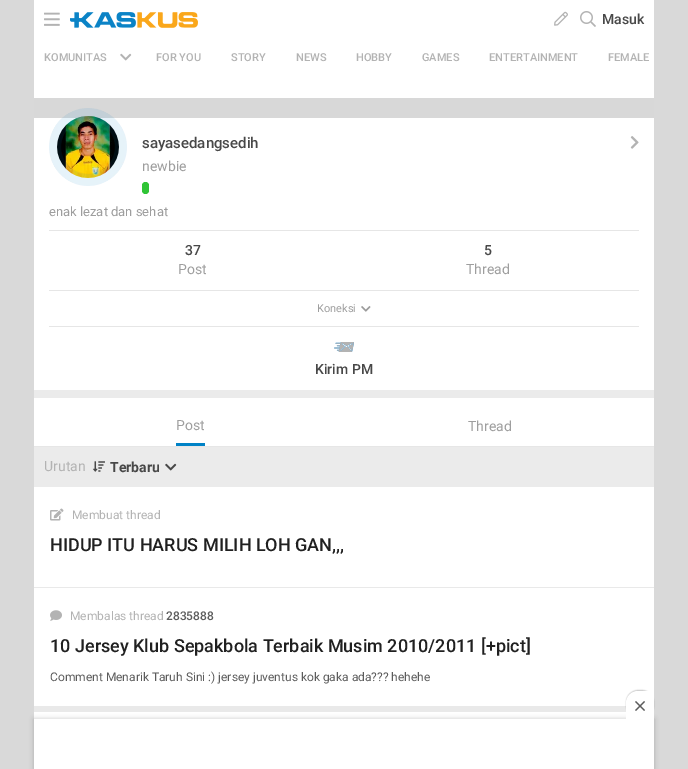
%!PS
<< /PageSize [688 769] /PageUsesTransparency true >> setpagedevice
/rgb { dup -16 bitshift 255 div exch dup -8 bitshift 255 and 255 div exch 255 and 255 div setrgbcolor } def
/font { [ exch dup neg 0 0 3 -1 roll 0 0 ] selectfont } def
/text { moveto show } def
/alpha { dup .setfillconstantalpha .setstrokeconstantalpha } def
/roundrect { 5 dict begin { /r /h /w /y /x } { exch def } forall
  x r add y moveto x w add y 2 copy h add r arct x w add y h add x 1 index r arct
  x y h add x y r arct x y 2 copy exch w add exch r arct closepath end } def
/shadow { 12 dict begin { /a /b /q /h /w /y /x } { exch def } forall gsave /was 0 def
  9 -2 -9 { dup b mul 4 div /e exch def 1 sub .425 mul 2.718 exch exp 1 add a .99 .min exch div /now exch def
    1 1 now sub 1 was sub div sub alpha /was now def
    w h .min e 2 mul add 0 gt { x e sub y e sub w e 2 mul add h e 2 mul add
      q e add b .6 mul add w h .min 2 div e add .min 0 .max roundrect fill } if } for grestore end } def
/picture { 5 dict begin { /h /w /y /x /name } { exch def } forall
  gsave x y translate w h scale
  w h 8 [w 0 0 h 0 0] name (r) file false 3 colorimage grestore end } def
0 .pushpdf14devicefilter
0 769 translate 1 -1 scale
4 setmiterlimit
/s1 { /Roboto-Medium 14 font 16#484848 rgb } def
/s2 { /Roboto-Medium 11 font 16#B3B3B3 rgb } def
/s3 { /Roboto-Medium 15 font 16#484848 rgb } def
/s4 { /Roboto-Regular 14 font 16#9E9E9E rgb } def
/s5 { /Roboto-Regular 13 font 16#9E9E9E rgb } def
/s6 { /Roboto-Regular 11 font 16#9E9E9E rgb } def
/s7 { /Roboto-Regular 14 font 16#B3B3B3 rgb } def
/s8 { /Roboto-Bold 14 font 16#484848 rgb } def
/s9 { /Roboto-Regular 12 font 16#B3B3B3 rgb } def
/s10 { /Roboto-Medium 18 font 16#202020 rgb } def
/s11 { /Roboto-Medium 12 font 16#5C5C5C rgb } def
/s12 { /Roboto-Regular 12 font 16#5C5C5C rgb } def
16#D9D9D9 rgb
0 0 688 769 rectfill
16#FFFFFF rgb
34 0 620 719 rectfill
(pic1.raw) 44 12 16 14 picture
(pic2.raw) 70 12 128 16 picture
(pic3.raw) 554 11 14 15 picture
(pic4.raw) 580 11 16 16 picture
s1
(Masuk) 602 24 text
s2
(KOMUNITAS) 44 61 text
(pic5.raw) 120 53 12 8 picture
(FOR YOU) 156 61 text
(STORY) 231 61 text
(NEWS) 296 61 text
(HOBBY) 356 61 text
(GAMES) 422 61 text
(ENTERTAINMENT) 489 61 text
(FEMALE) 608 61 text
16#D8D8D8 rgb
34 98 620 20 rectfill
(pic7.raw) 57 116 62 62 picture
(pic6.raw) 49 108 78 78 picture
s3
(sayasedangsedih) 142 148 text
s4
(newbie) 142 171 text
16#30C436 rgb
142 182 7 12 3.5 roundrect fill
(pic8.raw) 630 136 9 13 picture
16#EBEBEB rgb
34 390 620 8 rectfill
s5
(enak lezat dan sehat) 49 216 text
16#E6E6E6 rgb
49 230 590 1 rectfill
s1
(37) 185 255 text
s4
(Post) 178 274 text
s1
(5) 484 255 text
s4
(Thread) 466 274 text
16#E6E6E6 rgb
49 290 590 1 rectfill
s6
(Koneksi) 317 312 text
(pic9.raw) 361 306 10 6 picture
16#E6E6E6 rgb
49 326 590 1 rectfill
(pic10.raw) 334 342 20 10 picture
s1
(Kirim PM) 315 374 text
16#E6E6E6 rgb
34 446 620 1 rectfill
16#0082C6 rgb
176 443 29 3 rectfill
s4
(Post) 176 430 text
(Thread) 468 431 text
16#EBEBEB rgb
34 447 620 40 rectfill
s7
(Urutan) 44 471 text
(pic11.raw) 93 461 12 11 picture
s8
(Terbaru) 110 472 text
(pic12.raw) 165 463 12 8 picture
16#E9E9E9 rgb
34 587 620 1 rectfill
(pic13.raw) 50 508 14 13 picture
s9
(Membuat thread) 72 519 text
s10
(HIDUP ITU HARUS MILIH LOH GAN,,,) 50 551 text
16#E9E9E9 rgb
34 706 592 6 rectfill
(pic14.raw) 50 610 12 11 picture
s9
(Membalas thread) 70 620 text
s11
(2835888) 166 620 text
s10
(10 Jersey Klub Sepakbola Terbaik Musim 2010/2011 [+pict]) 50 652 text
s12
(Comment Menarik Taruh Sini :\) jersey juventus kok gaka ada??? hehehe) 50 681 text
16#000000 rgb
34 719 620 50 0 2.5 0.2 shadow
16#FFFFFF rgb
34 719 620 50 rectfill
16#000000 rgb
626 690 28 28 12 0.5 0.2 shadow
16#FFFFFF rgb
638 691 moveto 654 691 lineto 654 719 lineto 626 719 lineto 626 703 lineto 626 696.5 631.5 691 638 691 curveto closepath fill
(pic15.raw) 635 701 10 10 picture
.poppdf14devicefilter showpage
